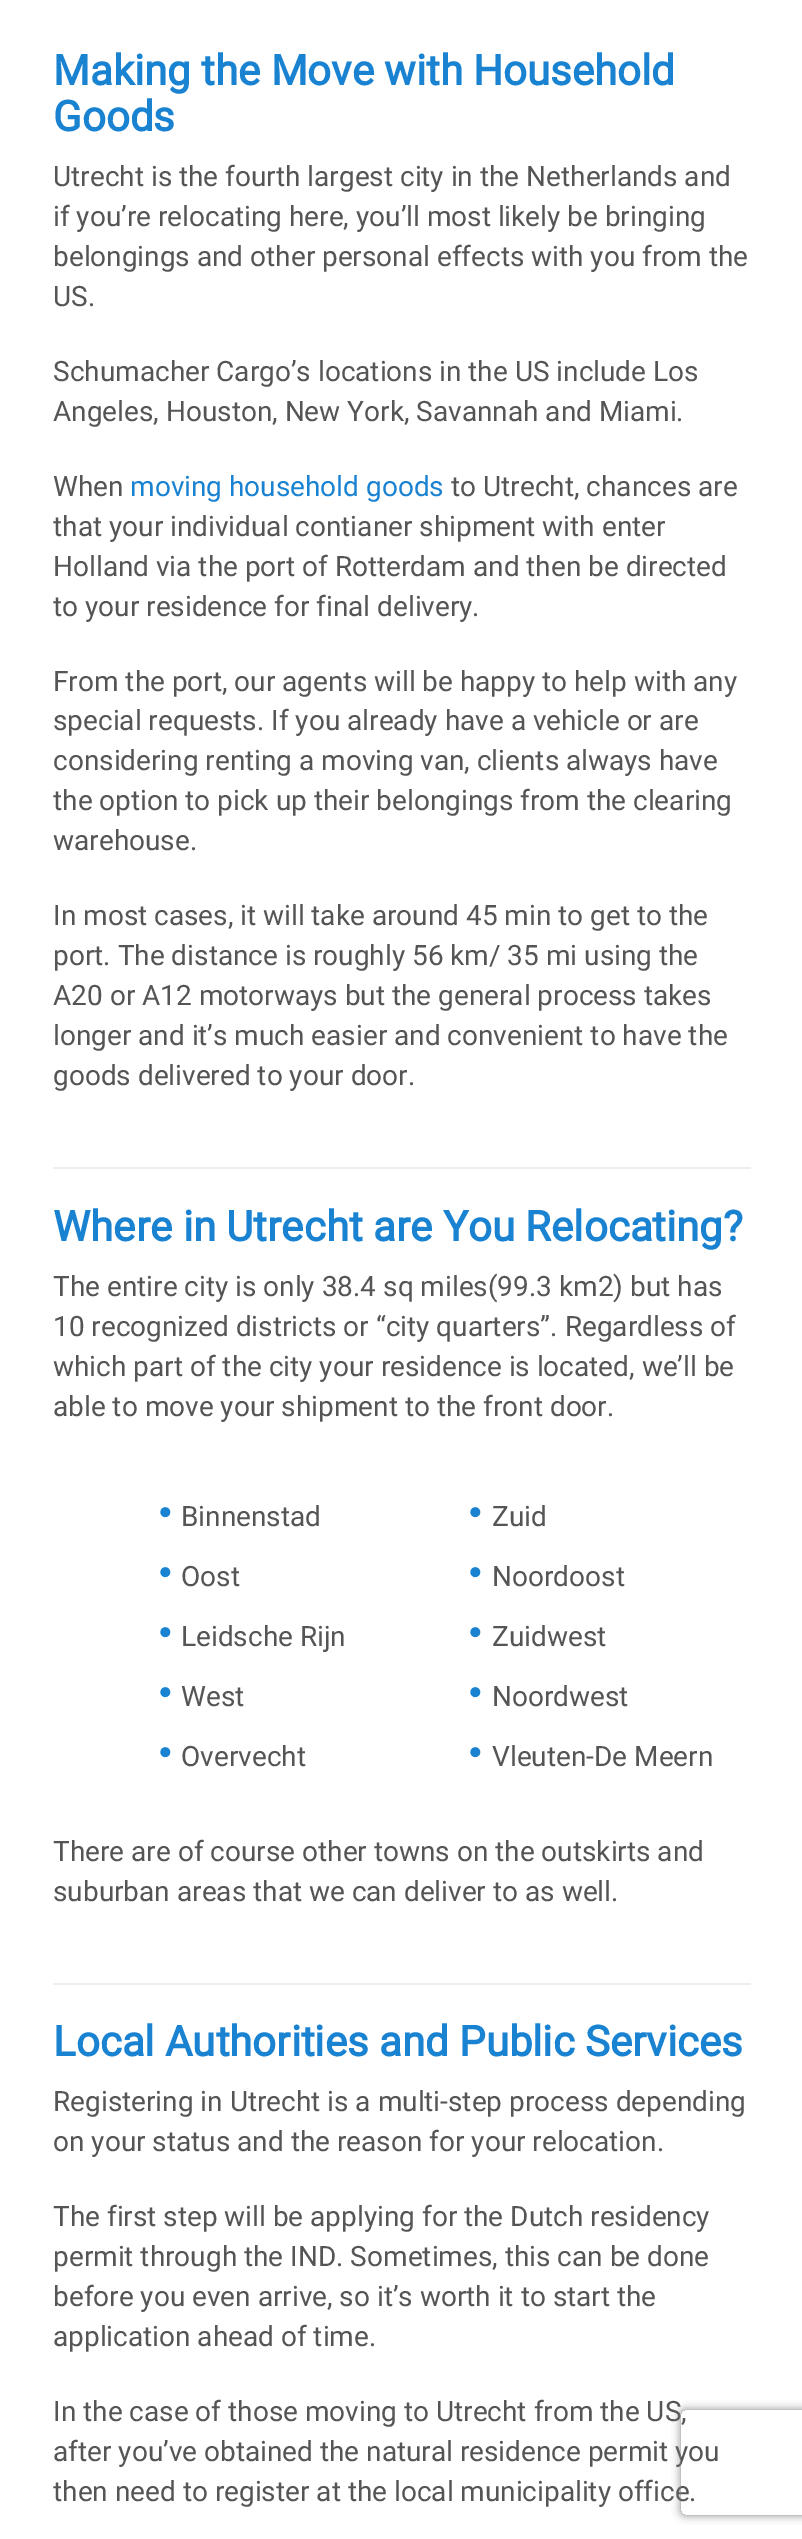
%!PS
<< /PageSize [802 2539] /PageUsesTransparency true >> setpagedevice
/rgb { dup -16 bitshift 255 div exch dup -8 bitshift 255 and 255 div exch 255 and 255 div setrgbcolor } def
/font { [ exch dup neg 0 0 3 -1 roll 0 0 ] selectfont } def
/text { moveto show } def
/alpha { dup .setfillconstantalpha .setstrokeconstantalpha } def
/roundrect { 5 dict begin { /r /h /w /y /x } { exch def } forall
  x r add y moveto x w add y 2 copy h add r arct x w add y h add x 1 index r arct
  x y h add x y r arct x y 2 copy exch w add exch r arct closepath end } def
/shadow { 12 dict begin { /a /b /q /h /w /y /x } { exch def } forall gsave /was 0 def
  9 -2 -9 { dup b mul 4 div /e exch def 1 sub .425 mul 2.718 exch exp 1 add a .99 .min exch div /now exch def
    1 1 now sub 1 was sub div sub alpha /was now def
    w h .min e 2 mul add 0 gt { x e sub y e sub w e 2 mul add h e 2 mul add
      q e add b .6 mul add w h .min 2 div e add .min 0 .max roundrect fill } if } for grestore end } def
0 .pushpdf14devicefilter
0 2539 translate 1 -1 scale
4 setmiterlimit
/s1 { /Roboto-Bold 42 font 16#1982D1 rgb } def
/s2 { /Roboto-Regular 28 font 16#555555 rgb } def
/s3 { /Roboto-Regular 28 font 16#1982D1 rgb } def
/s4 { /LiberationSerif-Regular 42 font 16#1982D1 rgb } def
16#FFFFFF rgb
0 0 802 2539 rectfill
s1
(Making the Move with Household) 53 85 text
(Goods) 53 131 text
s2
(Utrecht is the fourth largest city in the Netherlands and) 53 186 text
(if you’re relocating here, you’ll most likely be bringing) 53 226 text
(belongings and other personal effects with you from the) 53 266 text
(US.) 53 306 text
(Schumacher Cargo’s locations in the US include Los) 53 381 text
(Angeles, Houston, New York, Savannah and Miami.) 53 421 text
(When) 53 496 text
s3
(moving household goods) 130 496 text
s2
(to Utrecht, chances are) 451 496 text
(that your individual contianer shipment with enter) 53 536 text
(Holland via the port of Rotterdam and then be directed) 53 576 text
(to your residence for final delivery.) 53 616 text
(From the port, our agents will be happy to help with any) 53 691 text
(special requests. If you already have a vehicle or are) 53 730 text
(considering renting a moving van, clients always have) 53 770 text
(the option to pick up their belongings from the clearing) 53 810 text
(warehouse.) 53 850 text
(In most cases, it will take around 45 min to get to the) 53 925 text
(port. The distance is roughly 56 km/ 35 mi using the) 53 965 text
(A20 or A12 motorways but the general process takes) 53 1005 text
(longer and it’s much easier and convenient to have the) 53 1045 text
(goods delivered to your door.) 53 1085 text
16#EEEEEE rgb
53 1167 698 2 rectfill
s1
(Where in Utrecht are You Relocating?) 53 1241 text
s2
(The entire city is only 38.4 sq miles\(99.3 km2\) but has) 53 1296 text
(10 recognized districts or “city quarters”. Regardless of) 53 1336 text
(which part of the city your residence is located, we’ll be) 53 1376 text
(able to move your shipment to the front door.) 53 1416 text
s4
(•) 158 1526 text
s2
(Binnenstad) 181 1526 text
s4
(•) 158 1586 text
s2
(Oost) 181 1586 text
s4
(•) 158 1646 text
s2
(Leidsche Rijn) 181 1646 text
s4
(•) 158 1706 text
s2
(West) 181 1706 text
s4
(•) 158 1766 text
s2
(Overvecht) 181 1766 text
s4
(•) 468 1526 text
s2
(Zuid) 492 1526 text
s4
(•) 468 1586 text
s2
(Noordoost) 492 1586 text
s4
(•) 468 1646 text
s2
(Zuidwest) 492 1646 text
s4
(•) 468 1706 text
s2
(Noordwest) 492 1706 text
s4
(•) 468 1766 text
s2
(Vleuten-De Meern) 492 1766 text
(There are of course other towns on the outskirts and) 53 1861 text
(suburban areas that we can deliver to as well.) 53 1901 text
16#EEEEEE rgb
53 1983 698 2 rectfill
s1
(Local Authorities and Public Services) 53 2056 text
s2
(Registering in Utrecht is a multi-step process depending) 53 2111 text
(on your status and the reason for your relocation.) 53 2151 text
(The first step will be applying for the Dutch residency) 53 2226 text
(permit through the IND. Sometimes, this can be done) 53 2266 text
(before you even arrive, so it’s worth it to start the) 53 2306 text
(application ahead of time.) 53 2346 text
(In the case of those moving to Utrecht from the US,) 53 2421 text
(after you’ve obtained the natural residence permit you) 53 2461 text
(then need to register at the local municipality office.) 53 2501 text
gsave
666 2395 moveto 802 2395 lineto 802 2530 lineto 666 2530 lineto closepath 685 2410 moveto 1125 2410 lineto 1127 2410 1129 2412 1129 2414 curveto 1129 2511 lineto 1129 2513 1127 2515 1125 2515 curveto 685 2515 lineto 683 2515 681 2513 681 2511 curveto 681 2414 lineto 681 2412 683 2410 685 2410 curveto closepath eoclip newpath
16#808080 rgb
681 2410 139 105 4 4.5 1 shadow
grestore
.poppdf14devicefilter showpage
